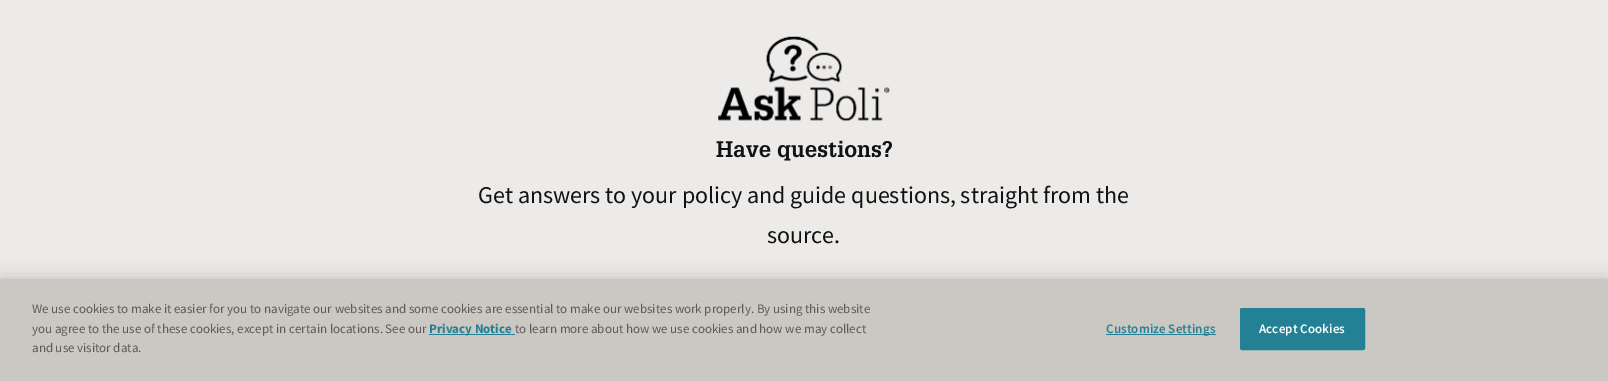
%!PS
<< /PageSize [1608 381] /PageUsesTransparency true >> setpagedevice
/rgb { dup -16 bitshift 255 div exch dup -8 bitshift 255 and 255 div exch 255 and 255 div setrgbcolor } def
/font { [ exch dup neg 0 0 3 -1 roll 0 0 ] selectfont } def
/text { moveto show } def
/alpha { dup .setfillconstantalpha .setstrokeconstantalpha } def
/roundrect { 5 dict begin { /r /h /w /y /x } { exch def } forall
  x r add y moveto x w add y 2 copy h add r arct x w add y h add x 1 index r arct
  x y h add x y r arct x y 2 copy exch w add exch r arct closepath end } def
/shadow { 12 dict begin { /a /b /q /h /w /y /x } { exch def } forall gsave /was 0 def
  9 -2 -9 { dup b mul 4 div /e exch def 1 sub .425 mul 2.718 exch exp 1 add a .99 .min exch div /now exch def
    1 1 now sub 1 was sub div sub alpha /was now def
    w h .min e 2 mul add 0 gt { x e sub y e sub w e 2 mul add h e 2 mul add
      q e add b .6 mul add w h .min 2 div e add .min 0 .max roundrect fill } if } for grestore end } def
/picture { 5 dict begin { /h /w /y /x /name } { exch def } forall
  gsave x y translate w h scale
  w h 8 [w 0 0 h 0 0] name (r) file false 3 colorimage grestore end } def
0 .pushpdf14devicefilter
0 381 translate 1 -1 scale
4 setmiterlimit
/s1 { /SourceSansPro-Regular 24 font 16#121212 rgb } def
/s2 { /SourceSansPro-Regular 13 font 16#605857 rgb } def
/s3 { /SourceSansPro-Bold 13 font 16#238196 rgb } def
16#EDEBE9 rgb
0 0 1608 381 rectfill
(pic1.raw) 718 36 172 86 picture
(pic2.raw) 716 140 176 21 picture
s1
(Get answers to your policy and guide questions, straight from the) 478 203 text
(source.) 767 243 text
16#000000 rgb
0 279 1608 102 0 9 0.2 shadow
16#CBC8C3 rgb
0 279 1608 102 rectfill
s2
(We use cookies to make it easier for you to navigate our websites and some cookies are essential to make our websites work properly. By using this website) 32 313 text
(you agree to the use of these cookies, except in certain locations. See our) 32 333 text
16#238196 rgb
429 334 86 1 rectfill
s3
(Privacy Notice) 429 333 text
s2
(to learn more about how we use cookies and how we may collect) 515 333 text
(and use visitor data.) 32 352 text
16#238196 rgb
1106 334 110 1 rectfill
/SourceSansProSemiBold-SemiBold 13 font
1106 333 moveto 0.1 0 (Customize Settings) ashow
1240.5 308.5 124 41 1.5 roundrect gsave fill grestore
stroke
16#FFFFFF rgb
1259 333 moveto 0.1 0 (Accept Cookies) ashow
.poppdf14devicefilter showpage
